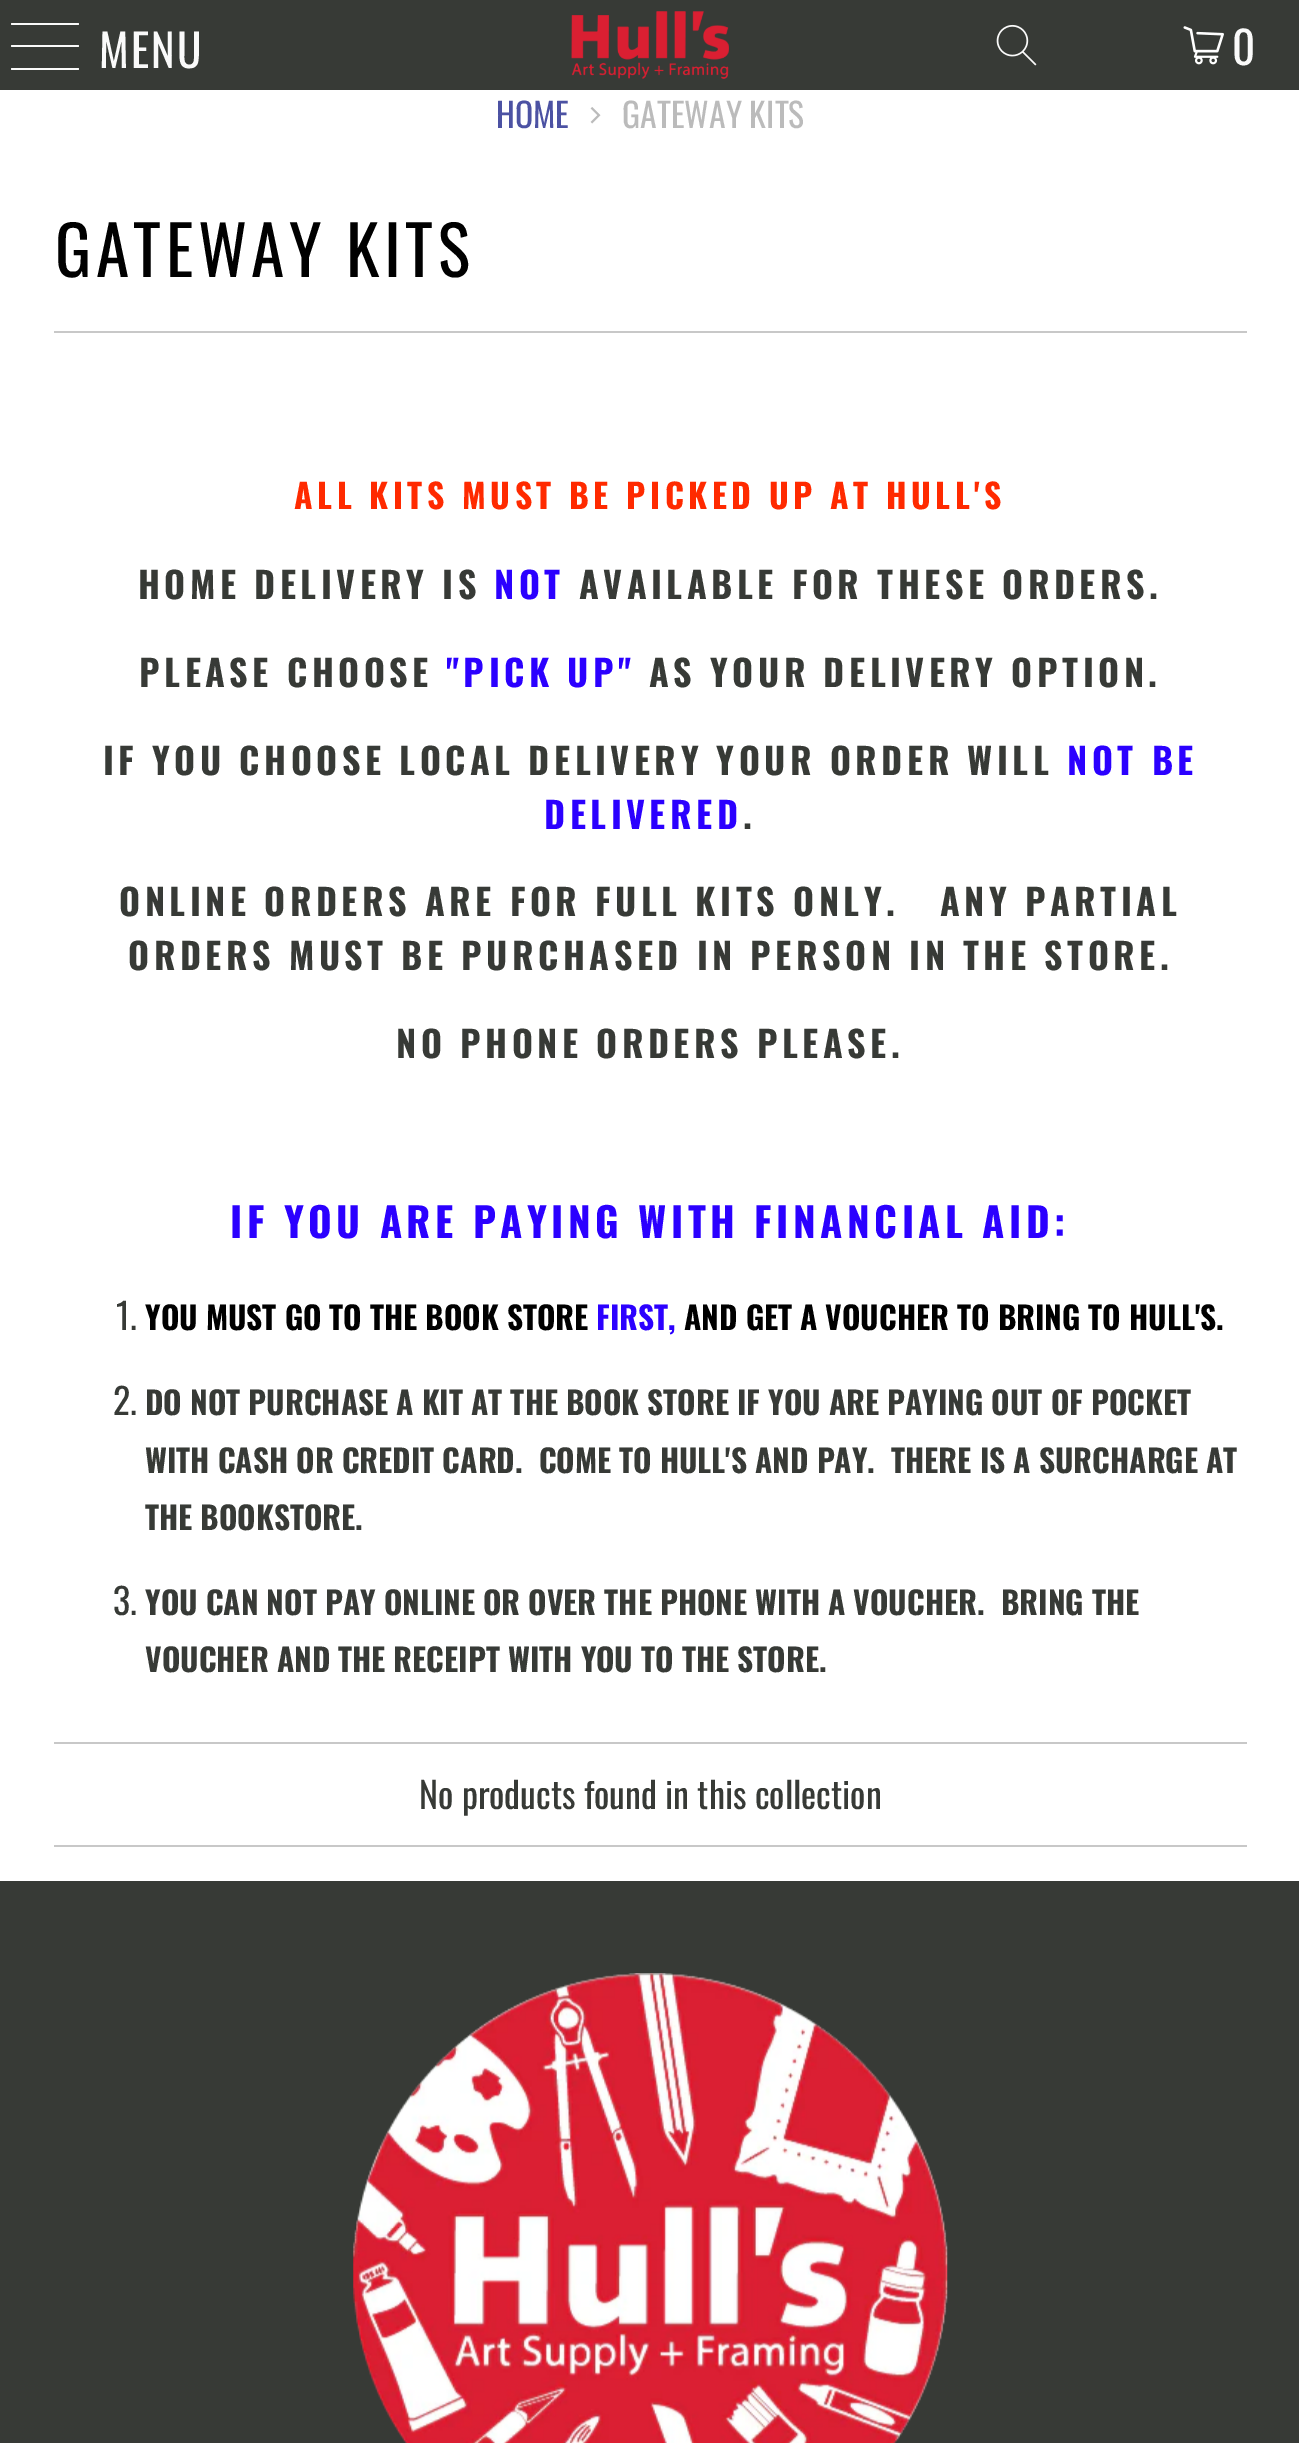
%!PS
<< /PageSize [1299 2443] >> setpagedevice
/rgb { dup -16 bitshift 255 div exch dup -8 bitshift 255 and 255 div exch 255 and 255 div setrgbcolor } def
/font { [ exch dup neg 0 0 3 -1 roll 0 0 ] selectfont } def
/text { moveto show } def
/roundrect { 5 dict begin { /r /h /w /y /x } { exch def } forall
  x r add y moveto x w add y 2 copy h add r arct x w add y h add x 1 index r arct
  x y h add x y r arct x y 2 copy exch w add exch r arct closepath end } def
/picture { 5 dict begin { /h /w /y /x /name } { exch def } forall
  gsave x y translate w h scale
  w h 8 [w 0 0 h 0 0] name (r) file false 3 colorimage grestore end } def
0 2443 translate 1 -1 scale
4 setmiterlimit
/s1 { /Oswald-Regular 45 font 16#FAFAFA rgb } def
/s2 { /Oswald-Regular 33.75 font 16#4C52A3 rgb } def
/s3 { /Oswald-Regular 33.75 font 16#BBBBBB rgb } def
/s4 { /Oswald-Regular 36 font 16#373A36 rgb } def
/s5 { /Oswald-Bold 31.5 font 16#000000 rgb } def
/s6 { /Oswald-Bold 31.5 font 16#2B00FF rgb } def
/s7 { /Oswald-Bold 31.5 font 16#373A36 rgb } def
16#FFFFFF rgb
0 0 1299 2443 rectfill
16#373A36 rgb
0 0 1299 90 rectfill
16#FAFAFA rgb
11 23 68 2 1 roundrect fill
11 45 68 2 1 roundrect fill
11 68 68 2 1 roundrect fill
/Oswald-Regular 45 font
99 68 moveto 2 0 (MENU) ashow
(pic1.raw) 571 11 158 68 picture
(pic2.raw) 996 24 41 42 picture
(pic3.raw) 1183 26 41 39 picture
(0) 1232 65 text
s2
(HOME) 496 128 text
(pic4.raw) 590 107 11 17 picture
s3
(GATEWAY KITS) 622 128 text
/Oswald-Regular 67.5 font
16#000000 rgb
55 277 moveto 4.5 0 (GATEWAY KITS) ashow
16#C8C8C8 rgb
54 331 1193 2 rectfill
/Oswald-Bold 33.75 font
16#FF2A00 rgb
294 509 moveto 4.5 0 (ALL KITS MUST BE PICKED UP AT HULL'S) ashow
/Oswald-Bold 36 font
16#373A36 rgb
138 599 moveto 4.5 0 (HOME DELIVERY IS) ashow
16#2B00FF rgb
494 599 moveto 4.5 0 (NOT) ashow
16#373A36 rgb
579 599 moveto 4.5 0 (AVAILABLE FOR THESE ORDERS.) ashow
139 687 moveto 4.5 0 (PLEASE CHOOSE) ashow
16#2B00FF rgb
446 687 moveto 4.5 0 ("PICK UP") ashow
16#373A36 rgb
649 687 moveto 4.5 0 (AS YOUR DELIVERY OPTION.) ashow
103 775 moveto 4.5 0 (IF YOU CHOOSE LOCAL DELIVERY YOUR ORDER WILL) ashow
16#2B00FF rgb
1067 775 moveto 4.5 0 (NOT BE) ashow
544 829 moveto 4.5 0 (DELIVERED) ashow
16#373A36 rgb
743 829 moveto 4.5 0 (.) ashow
119 916 moveto 4.5 0 (ONLINE ORDERS ARE FOR FULL KITS ONLY.) ashow
940 916 moveto 4.5 0 (ANY PARTIAL) ashow
128 970 moveto 4.5 0 (ORDERS MUST BE PURCHASED IN PERSON IN THE STORE.) ashow
396 1058 moveto 4.5 0 (NO PHONE ORDERS PLEASE.) ashow
/Oswald-Bold 40.5 font
16#2B00FF rgb
230 1238 moveto 4.5 0 (IF YOU ARE PAYING WITH FINANCIAL AID:) ashow
s4
(1.) 116 1330 text
s5
(YOU MUST GO TO THE BOOK STORE) 145 1330 text
s6
(FIRST,) 596 1330 text
s5
(AND GET A VOUCHER TO BRING TO HULL'S.) 684 1330 text
s4
(2.) 113 1415 text
s7
(DO NOT PURCHASE A KIT AT THE BOOK STORE IF YOU ARE PAYING OUT OF POCKET) 145 1415 text
(WITH CASH OR CREDIT CARD.  COME TO HULL'S AND PAY.  THERE IS A SURCHARGE AT) 145 1473 text
(THE BOOKSTORE.) 145 1530 text
s4
(3.) 113 1615 text
s7
(YOU CAN NOT PAY ONLINE OR OVER THE PHONE WITH A VOUCHER.  BRING THE) 145 1615 text
(VOUCHER AND THE RECEIPT WITH YOU TO THE STORE.) 145 1672 text
16#C8C8C8 rgb
54 1742 1193 2 rectfill
54 1845 1193 2 rectfill
s4
(No products found in this collection) 419 1809 text
0 1881 1299 562 rectfill
(pic5.raw) 353 1973 595 470 picture
showpage
